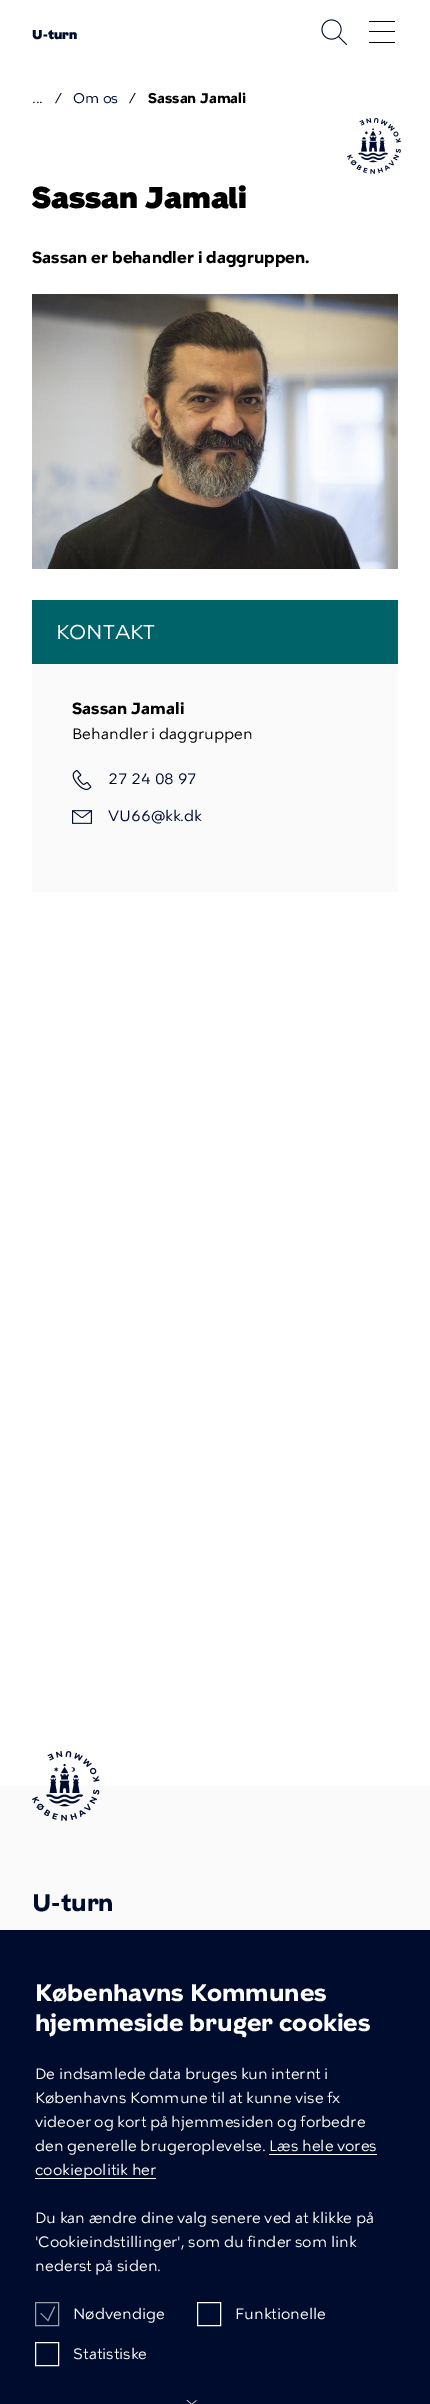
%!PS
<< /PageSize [430 2404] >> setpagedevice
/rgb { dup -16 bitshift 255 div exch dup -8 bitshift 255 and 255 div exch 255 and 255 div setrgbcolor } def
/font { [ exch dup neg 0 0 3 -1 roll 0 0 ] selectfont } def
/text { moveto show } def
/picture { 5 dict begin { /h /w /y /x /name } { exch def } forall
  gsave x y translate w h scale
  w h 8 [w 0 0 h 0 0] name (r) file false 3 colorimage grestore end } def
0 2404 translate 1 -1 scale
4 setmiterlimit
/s1 { /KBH-Black 13 font 16#000C2E rgb } def
/s2 { /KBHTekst-Regular 14 font 16#000000 rgb } def
/s3 { /KBHTekst-Regular 14 font 16#000C2E rgb } def
/s4 { /KBHTekst-Bold 14 font 16#000000 rgb } def
/s5 { /KBH-Black 30 font 16#000000 rgb } def
/s6 { /KBHTekst-Bold 16 font 16#000000 rgb } def
/s7 { /KBH-Regular 20 font 16#FFFFFF rgb } def
/s8 { /KBHTekst-Regular 15 font 16#000000 rgb } def
/s9 { /KBHTekst-Regular 15 font 16#000C2E rgb } def
/s10 { /KBH-Bold 24 font 16#000C2E rgb } def
/s11 { /KBH-Bold 24 font 16#FFFFFF rgb } def
/s12 { /KBHTekst-Regular 15 font 16#FFFFFF rgb } def
16#FFFFFF rgb
0 0 430 2404 rectfill
s1
(U-turn) 32 39 text
(pic1.raw) 321 19 26 26 picture
16#000000 rgb
369 21 26 1 rectfill
369 31 26 1 rectfill
369 42 26 1 rectfill
s2
(...) 32 103 text
(/) 55 103 text
s3
(Om os) 73 103 text
s2
(/) 129 103 text
s4
(Sassan Jamali) 148 103 text
(pic2.raw) 347 118 54 56 picture
s5
(Sassan Jamali) 32 208 text
s6
(Sassan er behandler i daggruppen.) 32 263 text
(pic3.raw) 32 294 366 275 picture
16#006369 rgb
32 600 366 64 rectfill
s7
(KONTAKT) 56 639 text
16#FAFAFB rgb
32 664 366 228 rectfill
s6
(Sassan Jamali) 72 714 text
s8
(Behandler i daggruppen) 72 739 text
(pic4.raw) 72 770 20 20 picture
s9
(27 24 08 97) 108 784 text
(pic5.raw) 72 810 20 14 picture
(VU66@kk.dk) 108 821 text
16#FAFAFB rgb
0 1786 430 144 rectfill
(pic6.raw) 32 1751 68 70 picture
s10
(U-turn) 32 1911 text
0 1930 430 474 rectfill
s11
(Københavns Kommunes) 35 2001 text
(hjemmeside bruger cookies) 35 2031 text
s12
(De indsamlede data bruges kun internt i) 35 2079 text
(Københavns Kommune til at kunne vise fx) 35 2103 text
(videoer og kort på hjemmesiden og forbedre) 35 2127 text
(den generelle brugeroplevelse. Læs hele vores) 35 2151 text
35 2178 121 1 rectfill
(cookiepolitik her) 35 2175 text
269 2154 108 1 rectfill
(Du kan ændre dine valg senere ved at klikke på) 35 2223 text
('Cookieindstillinger', som du finder som link) 35 2247 text
(nederst på siden.) 35 2271 text
16#999EAB rgb
35.5 2302.5 23 23 rectstroke
1 setlinecap
41 2313.5 moveto 48 2320.5 lineto 54.5 2307 lineto stroke
s12
(Nødvendige) 73 2319 text
0 setlinecap
197.5 2302.5 23 23 rectstroke
(Funktionelle) 235 2319 text
35.5 2342.5 23 23 rectstroke
(Statistiske) 73 2359 text
(pic7.raw) 186 2400 11 4 picture
showpage
